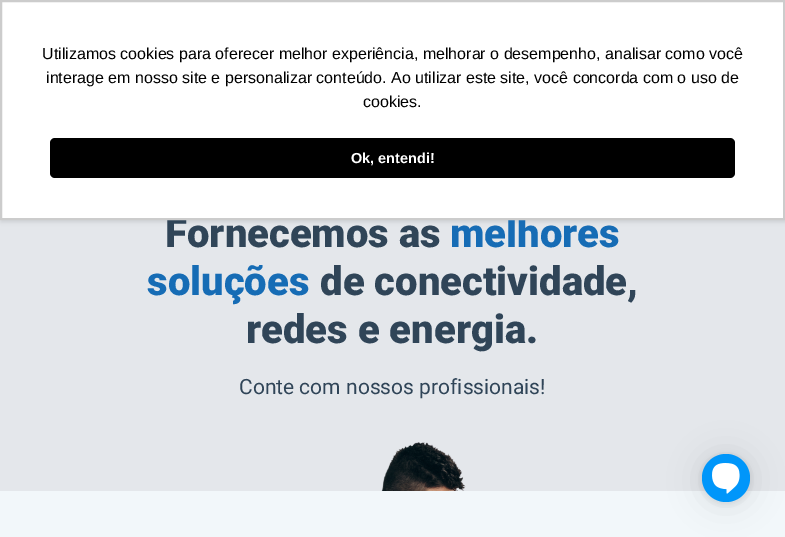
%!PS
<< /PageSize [785 537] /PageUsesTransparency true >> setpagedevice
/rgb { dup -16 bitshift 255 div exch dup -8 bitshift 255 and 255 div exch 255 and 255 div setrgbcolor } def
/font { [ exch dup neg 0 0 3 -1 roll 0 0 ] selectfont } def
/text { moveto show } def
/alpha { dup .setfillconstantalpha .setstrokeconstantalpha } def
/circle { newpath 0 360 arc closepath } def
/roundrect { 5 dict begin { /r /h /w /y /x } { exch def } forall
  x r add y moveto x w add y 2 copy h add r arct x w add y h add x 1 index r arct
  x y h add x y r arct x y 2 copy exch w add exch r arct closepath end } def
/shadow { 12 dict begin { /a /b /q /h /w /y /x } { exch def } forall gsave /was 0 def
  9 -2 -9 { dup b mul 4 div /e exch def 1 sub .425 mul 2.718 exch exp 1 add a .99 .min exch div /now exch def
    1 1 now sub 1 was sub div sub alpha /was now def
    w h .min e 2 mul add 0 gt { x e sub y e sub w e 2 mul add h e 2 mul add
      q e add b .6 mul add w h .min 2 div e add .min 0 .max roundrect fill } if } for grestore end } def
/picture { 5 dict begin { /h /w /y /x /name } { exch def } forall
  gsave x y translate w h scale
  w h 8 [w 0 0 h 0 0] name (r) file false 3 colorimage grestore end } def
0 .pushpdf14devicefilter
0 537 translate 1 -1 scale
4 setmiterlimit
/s1 { /Roboto-Black 40 font 16#304558 rgb } def
/s2 { /Roboto-Black 40 font 16#166CB5 rgb } def
/s3 { /LiberationSans-Regular 16 font 16#000000 rgb } def
/s4 { /LiberationSans-Bold 14.5 font 16#FFFFFF rgb } def
/s5 { /Roboto-Regular 21 font 16#304558 rgb } def
16#F2F7FA rgb
0 0 785 537 rectfill
16#E4E7EB rgb
0 220 785 271 rectfill
16#000000 rgb
1 2 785 220 0 2 0.1 shadow
s1
(Fornecemos as) 165 247 text
s2
(melhores) 450 247 text
16#FFFFFF rgb
1 1 moveto 784 1 lineto 784 219 lineto 1 219 lineto closepath gsave fill grestore
16#CCCCCC rgb
2 setlinewidth
stroke
s3
(Utilizamos cookies para oferecer melhor experiência, melhorar o desempenho, analisar como você) 42 59 text
(interage em nosso site e personalizar conteúdo. Ao utilizar este site, você concorda com o uso de) 46 83 text
(cookies.) 363 107 text
50 138 685 40 5 roundrect fill
s4
(Ok, entendi!) 351 163 text
s2
(soluções) 147 295 text
s1
(de conectividade,) 320 295 text
(redes e energia.) 246 343 text
s5
(Conte com nossos profissionais!) 239 394 text
(pic1.raw) 381 442 85 49 picture
16#000000 rgb
702 456 48 48 24 16 0.1 shadow
702 455 48 48 24 3 0.1 shadow
16#0096FA rgb
726 478 24 circle fill
(pic2.raw) 712 463 28 31 picture
.poppdf14devicefilter showpage
